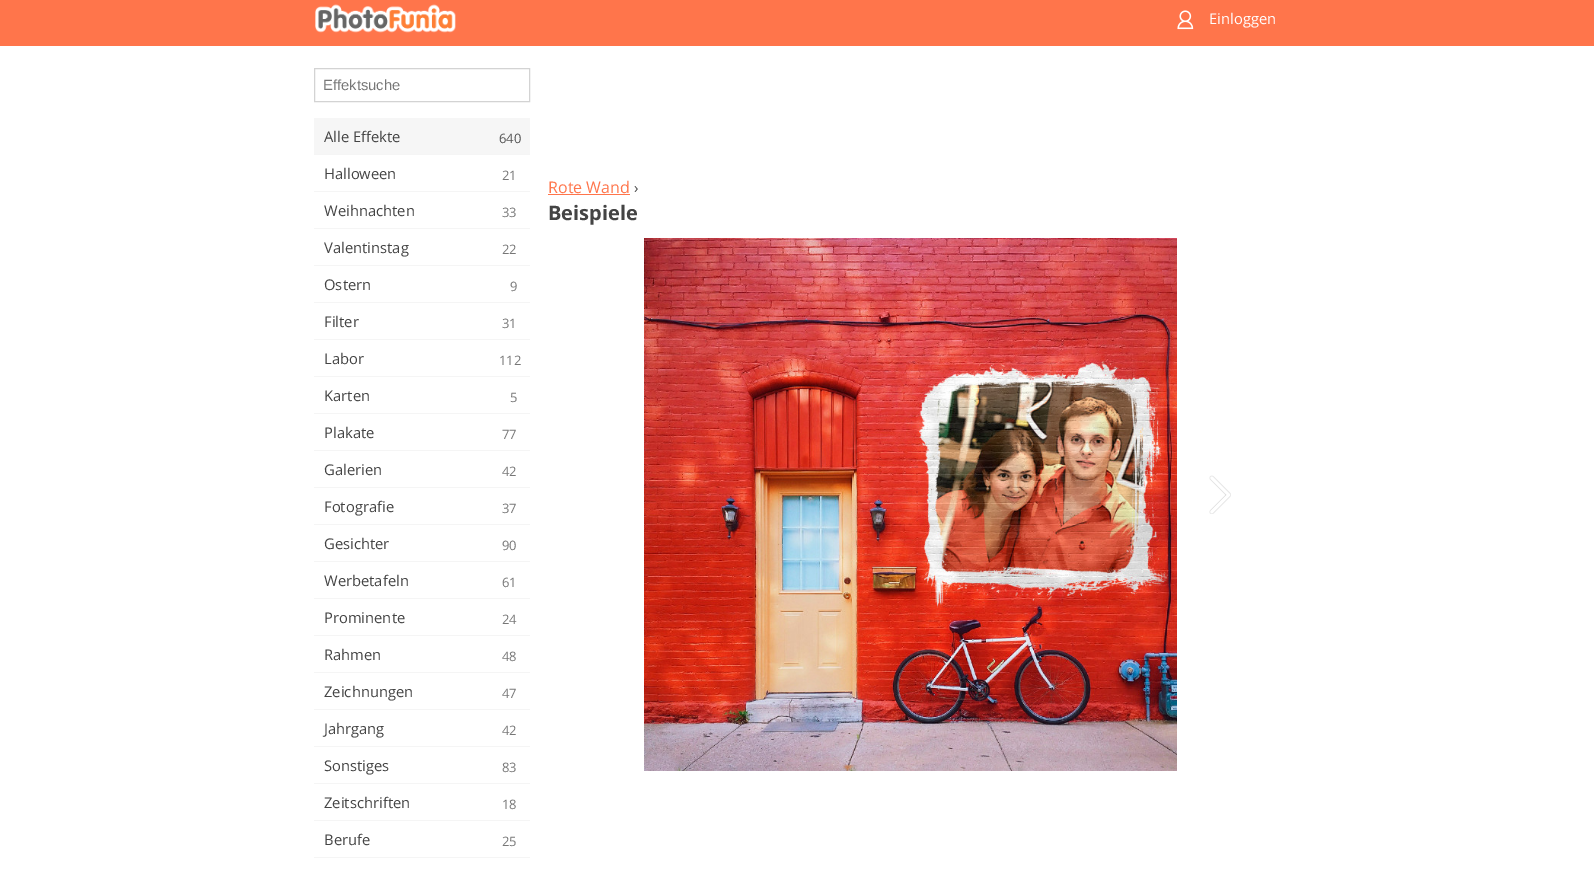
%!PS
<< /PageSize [1594 870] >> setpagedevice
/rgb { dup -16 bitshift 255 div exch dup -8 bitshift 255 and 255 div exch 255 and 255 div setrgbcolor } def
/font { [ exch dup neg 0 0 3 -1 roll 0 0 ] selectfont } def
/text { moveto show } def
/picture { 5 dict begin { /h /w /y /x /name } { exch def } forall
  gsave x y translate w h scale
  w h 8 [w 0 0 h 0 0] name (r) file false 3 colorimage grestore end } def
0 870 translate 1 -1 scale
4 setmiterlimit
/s1 { /OpenSans-Regular 14.75 font 16#FFFFFF rgb } def
/s2 { /LiberationSans-Regular 14.75 font 16#777777 rgb } def
/s3 { /OpenSans-Regular 14.75 font 16#444444 rgb } def
/s4 { /OpenSans-Regular 13 font 16#555555 rgb } def
/s5 { /OpenSans-Regular 13 font 16#777777 rgb } def
/s6 { /OpenSans-Regular 16 font 16#FF754B rgb } def
/s7 { /OpenSans-Bold 20 font 16#444444 rgb } def
16#FFFFFF rgb
0 0 1594 870 rectfill
16#FF754B rgb
0 0 1594 46 rectfill
(pic1.raw) 315 4 141 29 picture
(pic2.raw) 1177 10 17 20 picture
s1
(Einloggen) 1209 24 text
16#D3D3D3 rgb
314.5 68.5 215 33 rectstroke
s2
(Effektsuche) 323 90 text
16#F6F6F6 rgb
314 118 216 36 rectfill
s3
(Alle Effekte) 324 142 text
s4
(640) 499 143 text
16#F5F5F5 rgb
314 154 216 1 rectfill
s3
(Halloween) 324 179 text
s5
(21) 502 180 text
16#F5F5F5 rgb
314 191 216 1 rectfill
s3
(Weihnachten) 324 216 text
s5
(33) 502 217 text
16#F5F5F5 rgb
314 228 216 1 rectfill
s3
(Valentinstag) 324 253 text
s5
(22) 502 254 text
16#F5F5F5 rgb
314 265 216 1 rectfill
s3
(Ostern) 324 290 text
s5
(9) 510 291 text
16#F5F5F5 rgb
314 302 216 1 rectfill
s3
(Filter) 324 327 text
s5
(31) 502 328 text
16#F5F5F5 rgb
314 339 216 1 rectfill
s3
(Labor) 324 364 text
s5
(112) 499 365 text
16#F5F5F5 rgb
314 376 216 1 rectfill
s3
(Karten) 324 401 text
s5
(5) 510 402 text
16#F5F5F5 rgb
314 413 216 1 rectfill
s3
(Plakate) 324 438 text
s5
(77) 502 439 text
16#F5F5F5 rgb
314 450 216 1 rectfill
s3
(Galerien) 324 475 text
s5
(42) 502 476 text
16#F5F5F5 rgb
314 487 216 1 rectfill
s3
(Fotografie) 324 512 text
s5
(37) 502 513 text
16#F5F5F5 rgb
314 524 216 1 rectfill
s3
(Gesichter) 324 549 text
s5
(90) 502 550 text
16#F5F5F5 rgb
314 561 216 1 rectfill
s3
(Werbetafeln) 324 586 text
s5
(61) 502 587 text
16#F5F5F5 rgb
314 598 216 1 rectfill
s3
(Prominente) 324 623 text
s5
(24) 502 624 text
16#F5F5F5 rgb
314 635 216 1 rectfill
s3
(Rahmen) 324 660 text
s5
(48) 502 661 text
16#F5F5F5 rgb
314 672 216 1 rectfill
s3
(Zeichnungen) 324 697 text
s5
(47) 502 698 text
16#F5F5F5 rgb
314 709 216 1 rectfill
s3
(Jahrgang) 324 734 text
s5
(42) 502 735 text
16#F5F5F5 rgb
314 746 216 1 rectfill
s3
(Sonstiges) 324 771 text
s5
(83) 502 772 text
16#F5F5F5 rgb
314 783 216 1 rectfill
s3
(Zeitschriften) 324 808 text
s5
(18) 502 809 text
16#F5F5F5 rgb
314 820 216 1 rectfill
s3
(Berufe) 324 845 text
s5
(25) 502 846 text
16#F5F5F5 rgb
314 857 216 1 rectfill
s6
(Rote Wand) 548 193 text
548 194 82 1 rectfill
s3
(›) 634 193 text
s7
(Beispiele) 548 220 text
(pic3.raw) 644 238 533 533 picture
(pic4.raw) 1209 475 22 39 picture
showpage
